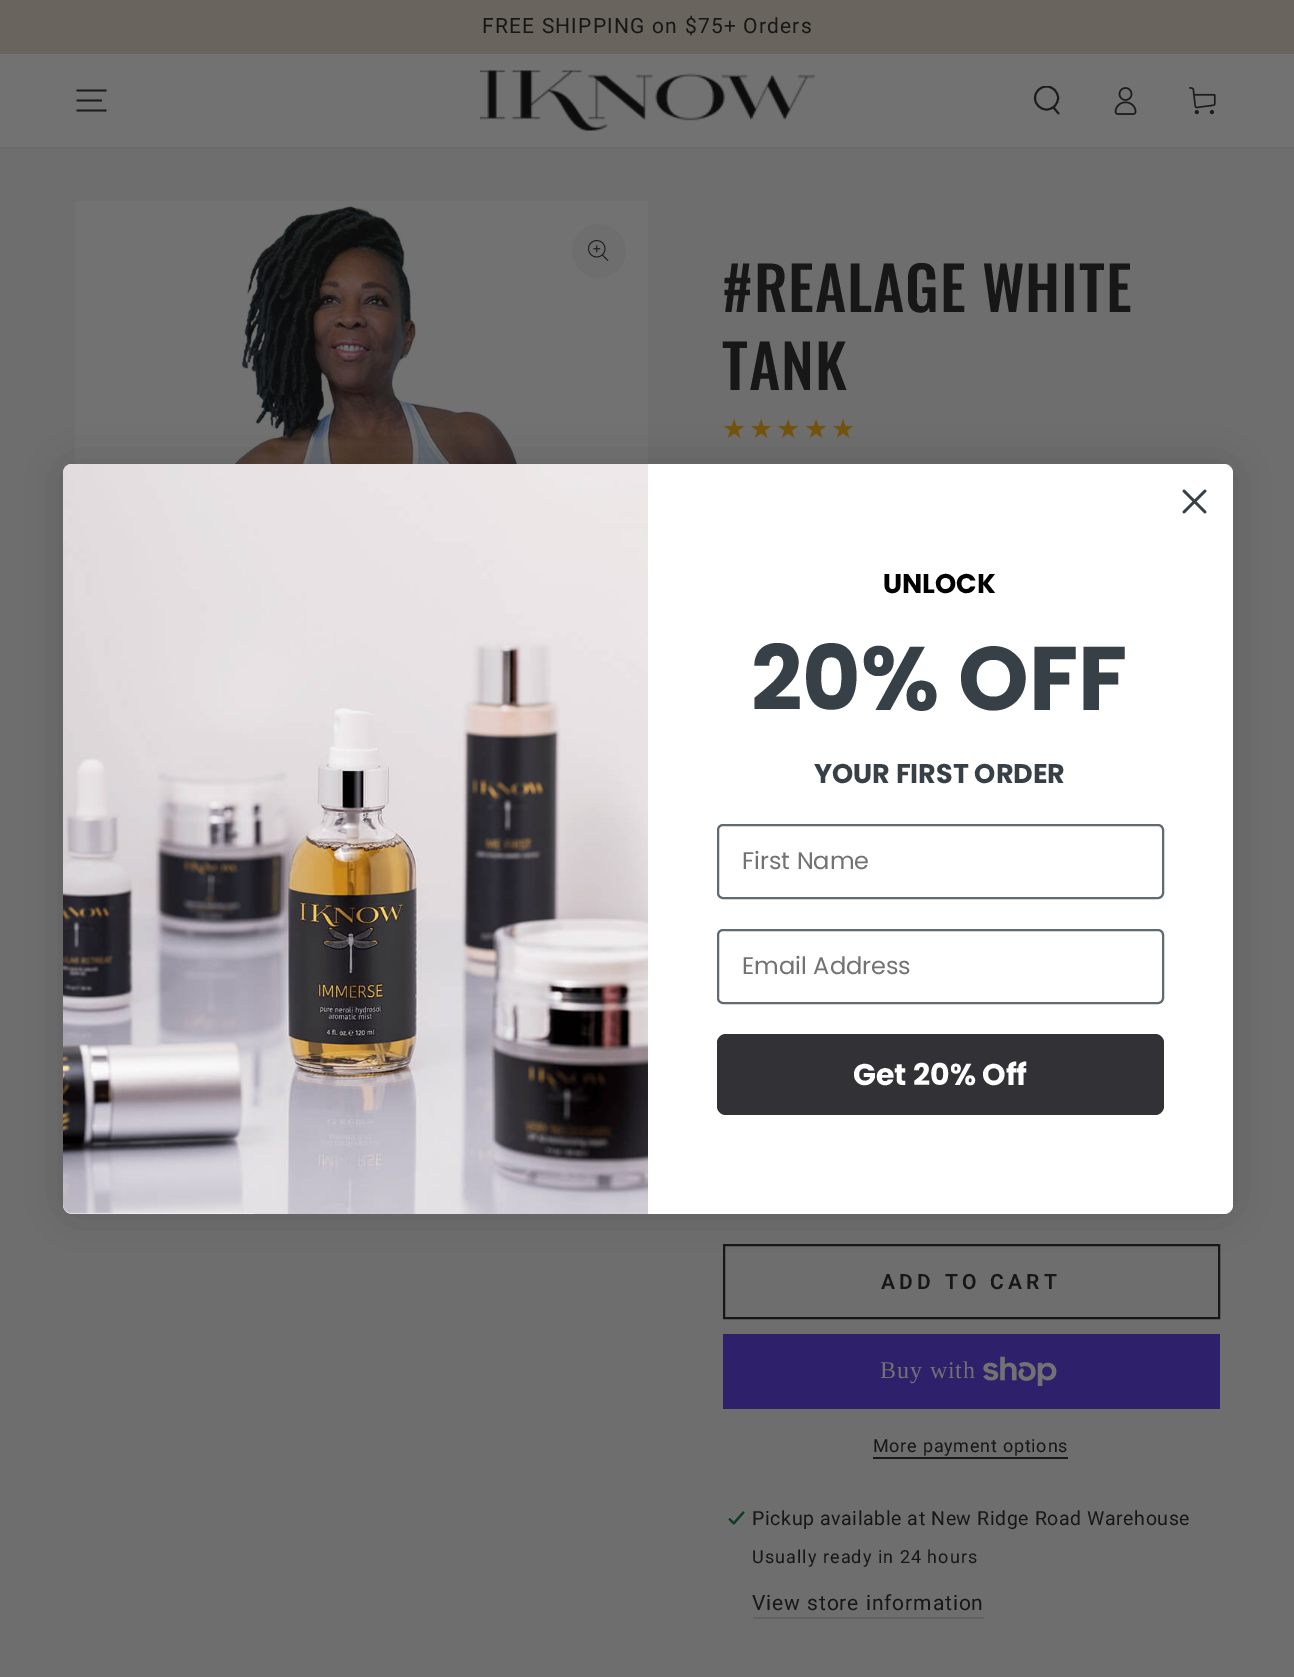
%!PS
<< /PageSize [1294 1677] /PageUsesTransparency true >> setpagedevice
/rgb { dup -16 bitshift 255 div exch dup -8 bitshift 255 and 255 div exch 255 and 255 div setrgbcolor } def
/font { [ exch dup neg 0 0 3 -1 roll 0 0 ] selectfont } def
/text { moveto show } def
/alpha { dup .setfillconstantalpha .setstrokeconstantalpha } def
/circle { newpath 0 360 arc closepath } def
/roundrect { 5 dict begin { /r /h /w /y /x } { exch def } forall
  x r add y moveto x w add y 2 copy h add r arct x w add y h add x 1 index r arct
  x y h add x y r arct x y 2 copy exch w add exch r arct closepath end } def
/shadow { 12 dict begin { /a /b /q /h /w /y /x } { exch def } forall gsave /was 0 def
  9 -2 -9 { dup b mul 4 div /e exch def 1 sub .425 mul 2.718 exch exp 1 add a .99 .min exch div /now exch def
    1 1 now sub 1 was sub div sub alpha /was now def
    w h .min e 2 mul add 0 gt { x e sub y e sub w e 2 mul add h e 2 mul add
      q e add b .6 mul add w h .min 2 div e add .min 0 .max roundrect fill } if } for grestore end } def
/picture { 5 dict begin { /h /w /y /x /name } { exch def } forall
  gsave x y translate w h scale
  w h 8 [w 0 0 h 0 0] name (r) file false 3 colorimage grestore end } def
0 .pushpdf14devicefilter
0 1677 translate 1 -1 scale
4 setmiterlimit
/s1 { /Poppins-Bold 27 font 16#000000 rgb } def
/s2 { /Poppins-Bold 90 font 16#373F47 rgb } def
/s3 { /Poppins-Bold 27 font 16#373F47 rgb } def
/s4 { /Poppins-Regular 24 font 16#727272 rgb } def
/s5 { /Poppins-Bold 30 font 16#FFFFFF rgb } def
16#6E6E6E rgb
0 0 1294 1677 rectfill
16#69645D rgb
0 0 1294 54 rectfill
/Roboto-Regular 21 font
16#161716 rgb
482 33 moveto 1.2 0 (FREE SHIPPING on $75+ Orders) ashow
16#6A6A6B rgb
0 147 moveto 0 149 lineto 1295 149 lineto 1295 56 lineto 1294 56 lineto 1294 147 lineto closepath fill
16#727272 rgb
0 54 1294 93 rectfill
16#1C1C1C rgb
1.7 setlinewidth
76.5 110.5 moveto 106.5 110.5 lineto 76.5 100.5 moveto 102 100.5 lineto 76.5 90.5 moveto 106.5 90.5 lineto stroke
(pic1.raw) 480 70 335 61 picture
gsave
1032 86 30 30 rectclip
1.9 setlinewidth
1046.5 98 11.5 circle stroke
grestore
1.9 setlinewidth
1 setlinecap
1053.5 107.5 moveto 1058.5 113.5 lineto stroke
(pic2.raw) 1114 87 23 28 picture
(pic3.raw) 1189 87 27 28 picture
(pic4.raw) 75 201 573 263 picture
16#6E6E6E rgb
599 251 27 circle fill
(pic5.raw) 588 240 21 21 picture
/Oswald-Medium 60 font
16#161716 rgb
722 312 moveto 0.9 0 (#REALAGE WHITE) ashow
722 390 moveto 0.9 0 (TANK) ashow
/DejaVuSans-Regular 27 font
16#72540F rgb
722 438 moveto 3 0 (★★★★★) ashow
16#161716 rgb
2 setlinewidth
0 setlinecap
724 1245 495 73 rectstroke
/Roboto-SemiBold 21 font
881 1289 moveto 4.25 0 (ADD TO CART) ashow
16#2E206A rgb
723 1334 497 75 rectfill
/LiberationSerif-Regular 24 font
16#727272 rgb
880 1378 moveto 0.9 0 (Buy with) ashow
(pic6.raw) 983 1356 74 30 picture
/Roboto-Regular 18 font
16#161716 rgb
873 1452 moveto 0.75 0 (More payment options) ashow
16#191A1B rgb
873 1457 195 2 rectfill
(pic7.raw) 727 1510 19 16 picture
/Roboto-Regular 19.5 font
16#161716 rgb
752 1525 moveto 0.6 0 (Pickup available at New Ridge Road Warehouse) ashow
/Roboto-Regular 18 font
752 1563 moveto 1.05 0 (Usually ready in 24 hours) ashow
16#606163 rgb
753 1617 231 2 rectfill
/Roboto-Regular 21 font
16#161716 rgb
752 1610 moveto 0.9 0 (View store information) ashow
16#000000 rgb
63 464 1170 750 9 22.5 0.15 shadow
16#FFFFFF rgb
63 464 1170 750 9 roundrect fill
16#373F47 rgb
2.6 setlinewidth
1 setlinecap
1 setlinejoin
1184 491 moveto 1205 512 lineto 1184 512 moveto 1205 491 lineto closepath stroke
(pic8.raw) 63 464 585 750 picture
s1
(UNLOCK) 883 593 text
s2
(20% OFF) 751 710 text
s3
(YOUR FIRST ORDER) 814 783 text
16#606A72 rgb
2 setlinewidth
0 setlinecap
0 setlinejoin
718 825 445 73 5 roundrect stroke
s4
(First Name) 742 869 text
16#606A72 rgb
718 930 445 73 5 roundrect stroke
s4
(Email Address) 742 974 text
16#323236 rgb
717 1034 447 81 9 roundrect fill
s5
(Get 20% Off) 853 1085 text
.poppdf14devicefilter showpage
